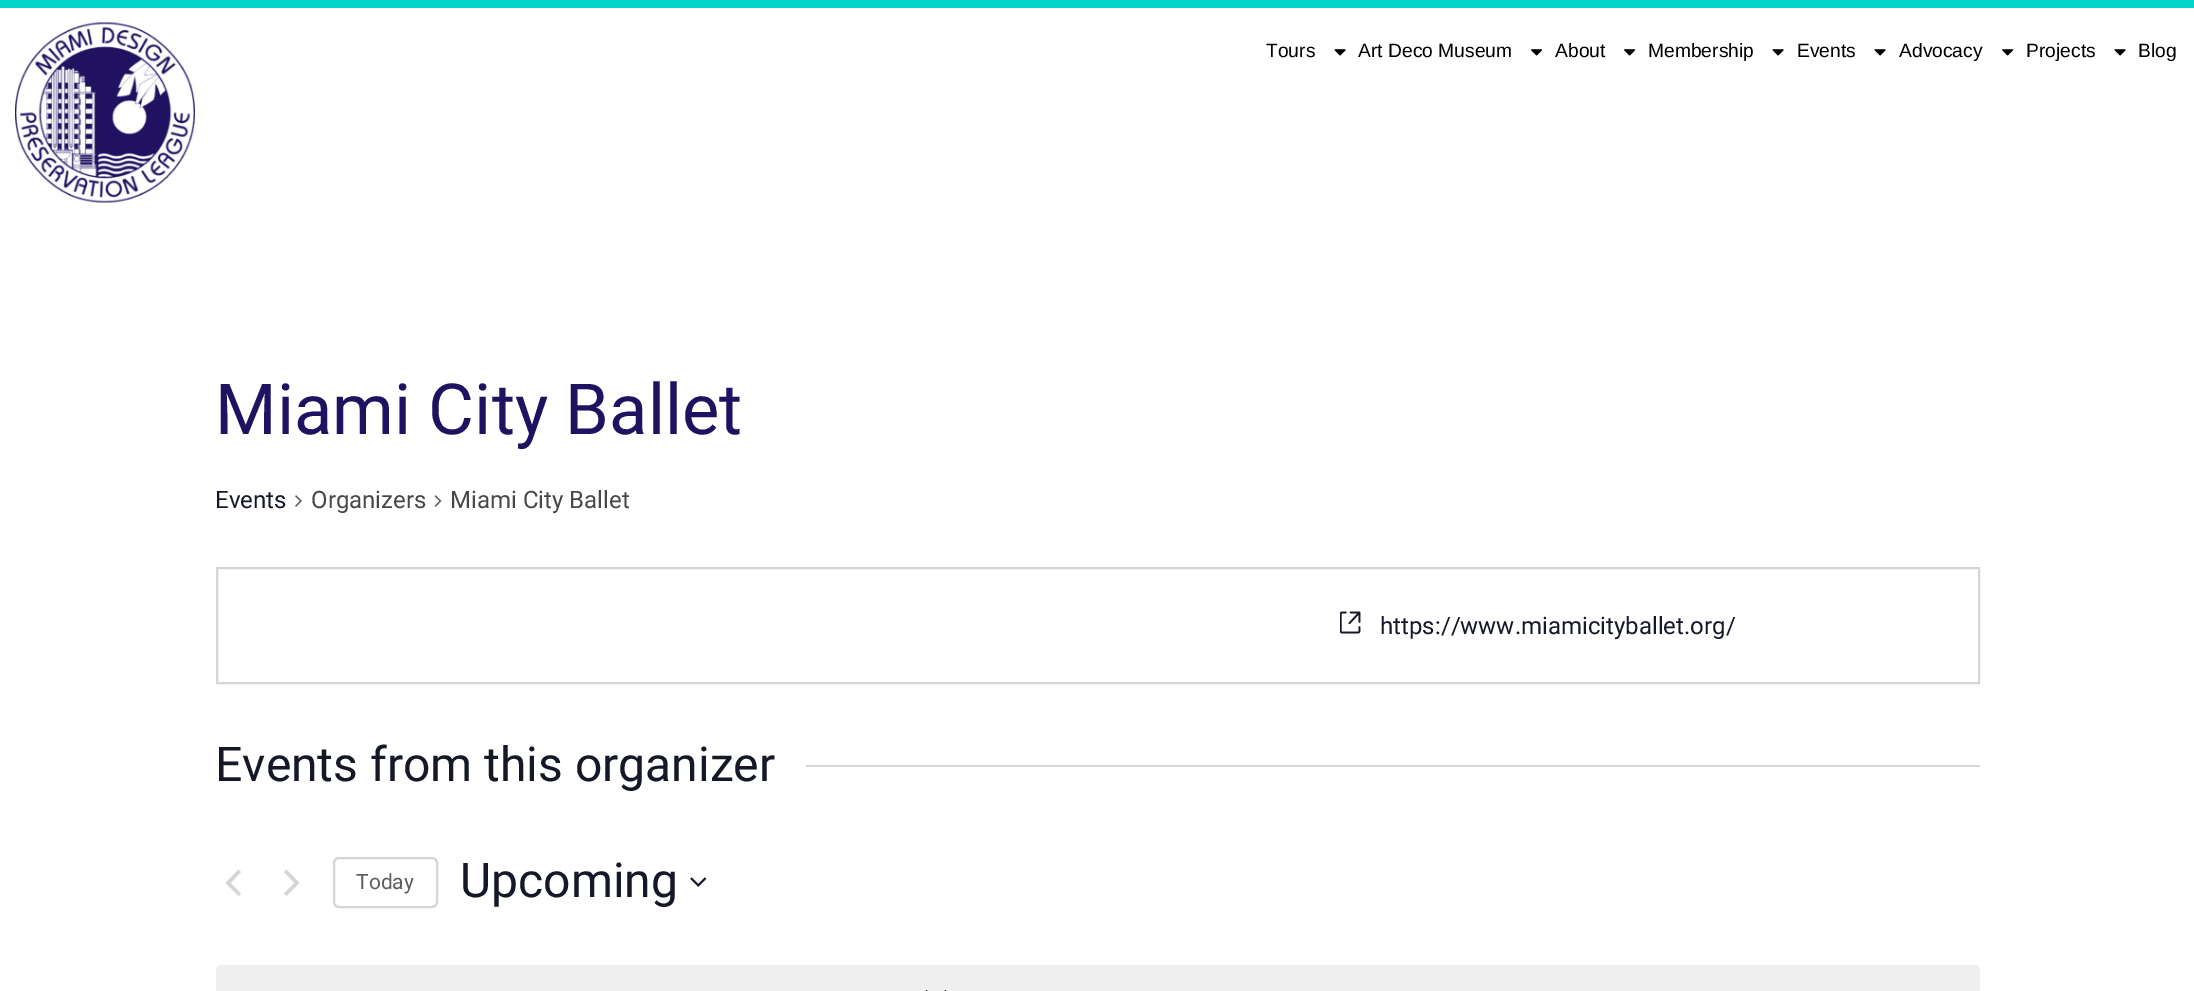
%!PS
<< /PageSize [2194 991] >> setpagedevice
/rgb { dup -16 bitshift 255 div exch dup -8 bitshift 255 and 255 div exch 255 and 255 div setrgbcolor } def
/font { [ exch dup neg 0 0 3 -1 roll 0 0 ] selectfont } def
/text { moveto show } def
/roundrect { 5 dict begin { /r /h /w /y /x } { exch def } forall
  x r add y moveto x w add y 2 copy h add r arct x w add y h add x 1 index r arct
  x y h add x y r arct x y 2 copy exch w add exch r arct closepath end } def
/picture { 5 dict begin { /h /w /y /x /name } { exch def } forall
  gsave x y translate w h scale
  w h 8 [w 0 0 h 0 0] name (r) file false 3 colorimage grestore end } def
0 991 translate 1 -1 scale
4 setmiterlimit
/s1 { /LiberationSans-Regular 19.25 font 16#000000 rgb } def
/s2 { /Roboto-Regular 70.5 font 16#211261 rgb } def
/s3 { /Roboto-Regular 24 font 16#141827 rgb } def
/s4 { /Roboto-Regular 24 font 16#474747 rgb } def
/s5 { /Roboto-Regular 48 font 16#141827 rgb } def
/s6 { /Roboto-Regular 21 font 16#5D5D5D rgb } def
16#FFFFFF rgb
0 0 2194 991 rectfill
16#02D3C9 rgb
0 0 2194 8 rectfill
(pic1.raw) 15 22 180 181 picture
s1
(Tours) 1266 57 text
(pic2.raw) 1334 49 12 7 picture
(Art Deco Museum) 1358 57 text
(pic3.raw) 1531 49 12 7 picture
(About) 1555 57 text
(pic3.raw) 1624 49 12 7 picture
(Membership) 1648 57 text
(pic2.raw) 1772 49 12 7 picture
(Events) 1797 57 text
(pic2.raw) 1874 49 12 7 picture
(Advocacy) 1899 57 text
(pic3.raw) 2002 49 12 7 picture
(Projects) 2026 57 text
(pic2.raw) 2114 49 12 7 picture
(Blog) 2138 57 text
s2
(Miami City Ballet) 215 434 text
s3
(Events) 215 508 text
(pic4.raw) 295 495 7 12 picture
s4
(Organizers) 311 508 text
(pic5.raw) 434 495 8 12 picture
(Miami City Ballet) 450 508 text
16#D5D5D5 rgb
2 setlinewidth
217 568 1762 115 rectstroke
(pic6.raw) 1340 611 21 23 picture
s3
(https://www.miamicityballet.org/) 1380 634 text
s5
(Events from this organizer) 215 781 text
16#D5D5D5 rgb
806 765 1174 2 rectfill
241 893.5 moveto 238.5 896 lineto 225.5 883 lineto 238.5 869.5 lineto 241 872 lineto 230.5 883 lineto closepath fill
284 872 moveto 286.5 869.5 lineto 299.5 883 lineto 286.5 896 lineto 284 893.5 lineto 294.5 883 lineto closepath fill
334 858 103 49 5 roundrect stroke
s6
(Today) 356 889 text
s5
(Upcoming) 460 897 text
(pic7.raw) 690 877 17 10 picture
16#EFEFF0 rgb
216 965 1764 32 6 roundrect fill
(pic8.raw) 925 990 22 1 picture
showpage
